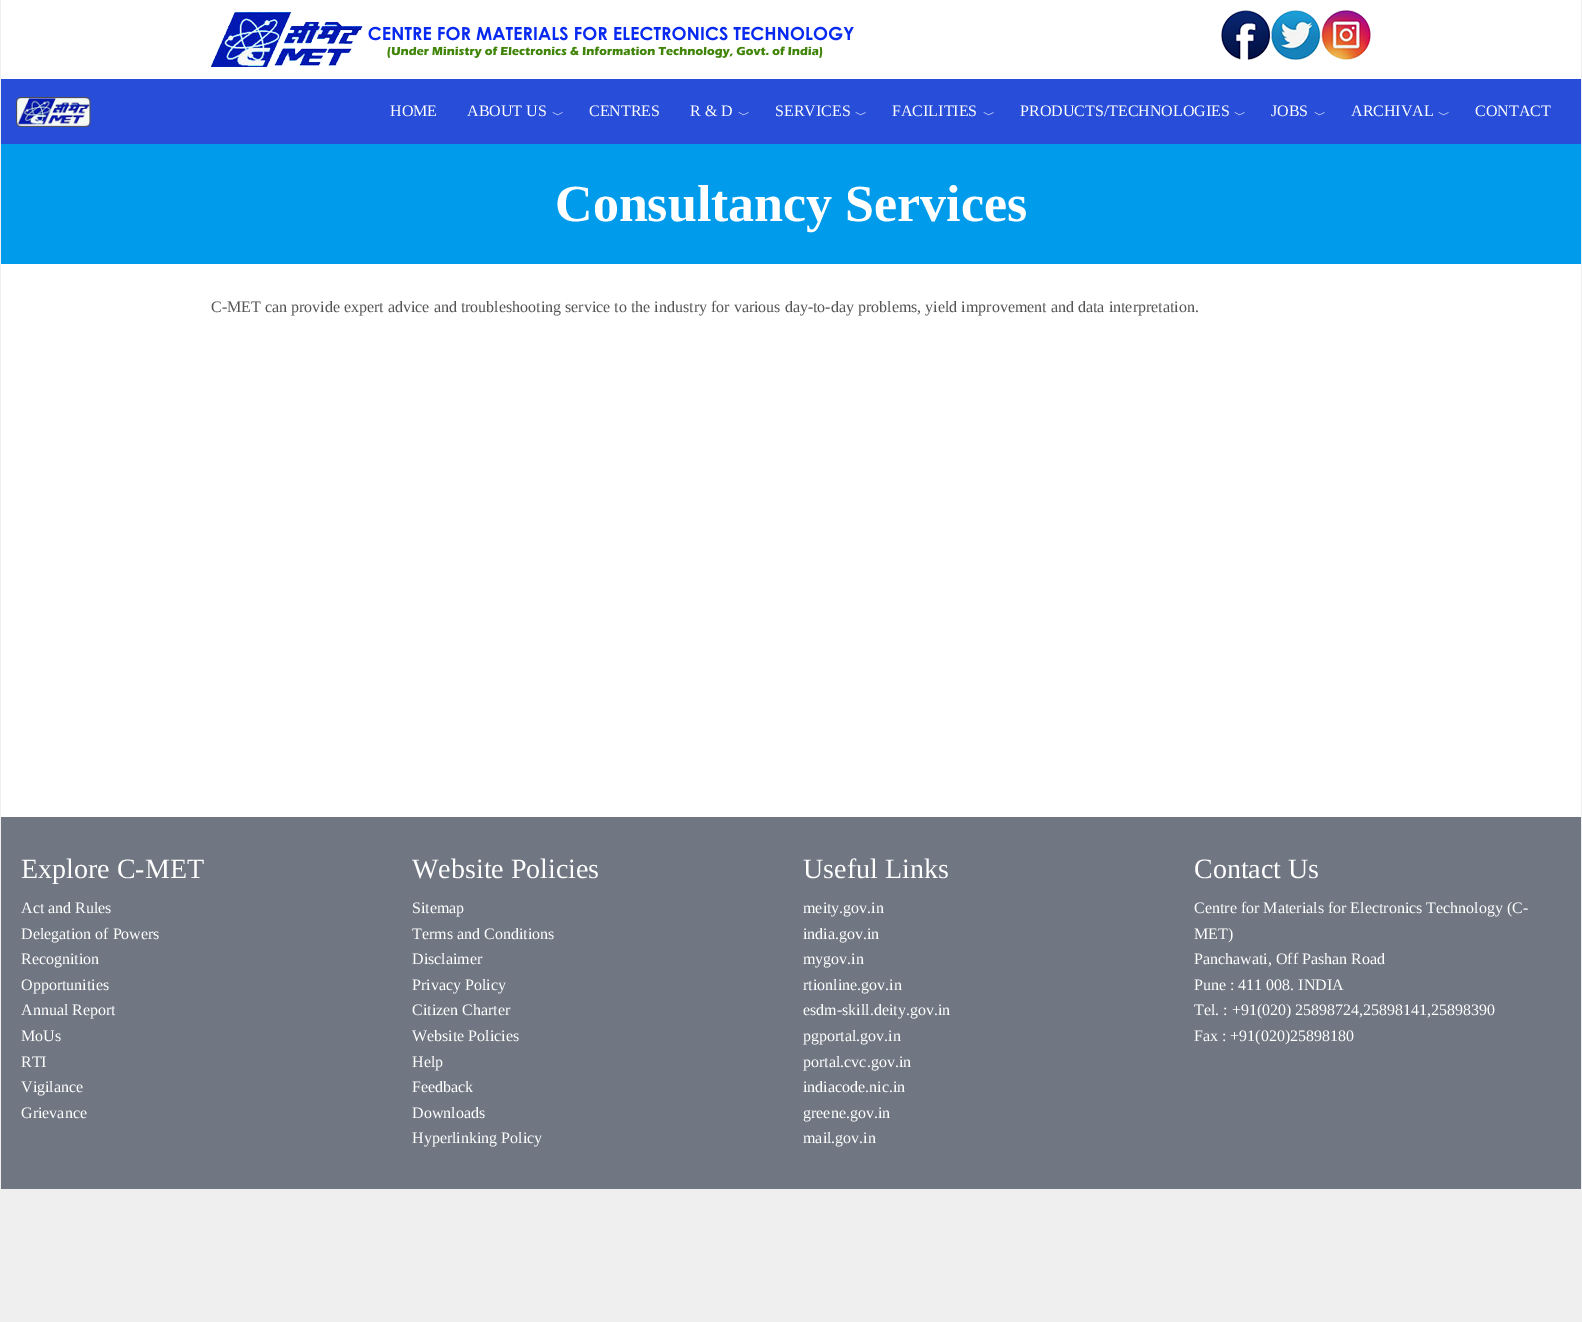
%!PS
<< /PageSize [1582 1322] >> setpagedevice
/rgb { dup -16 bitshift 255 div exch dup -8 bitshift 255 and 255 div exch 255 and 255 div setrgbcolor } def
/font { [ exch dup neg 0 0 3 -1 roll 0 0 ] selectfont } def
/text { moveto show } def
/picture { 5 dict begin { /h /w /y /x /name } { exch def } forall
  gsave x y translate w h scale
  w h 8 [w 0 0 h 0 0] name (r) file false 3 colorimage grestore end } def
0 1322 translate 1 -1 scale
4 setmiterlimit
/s1 { /LiberationSerif-Regular 16 font 16#FFFFFF rgb } def
/s2 { /WenQuanYiZenHei-Medium 12 font 16#FFFFFF rgb } def
/s3 { /LiberationSerif-Bold 52 font 16#FFFFFF rgb } def
/s4 { /LiberationSerif-Regular 16 font 16#555555 rgb } def
/s5 { /LiberationSerif-Regular 28 font 16#FFFFFF rgb } def
16#EFEFEF rgb
0 0 1582 1322 rectfill
16#FFFFFF rgb
1 0 1580 817 rectfill
(pic1.raw) 211 11 643 57 picture
(pic2.raw) 1221 10 150 50 picture
16#284ED9 rgb
1 79 1580 65 rectfill
(pic3.raw) 16 97 75 30 picture
s1
(HOME) 390 116 text
(ABOUT US) 467 116 text
s2
(﹀) 552 119 text
s1
(CENTRES) 589 116 text
(R & D) 690 116 text
s2
(﹀) 738 119 text
s1
(SERVICES) 775 116 text
s2
(﹀) 855 119 text
s1
(FACILITIES) 892 116 text
s2
(﹀) 983 119 text
s1
(PRODUCTS/TECHNOLOGIES) 1020 116 text
s2
(﹀) 1234 119 text
s1
(JOBS) 1271 116 text
s2
(﹀) 1314 119 text
s1
(ARCHIVAL) 1351 116 text
s2
(﹀) 1438 119 text
s1
(CONTACT) 1475 116 text
16#009CEB rgb
1 144 1580 120 rectfill
s3
(Consultancy Services) 555 221 text
s4
(C-MET can provide expert advice and troubleshooting service to the industry for various day-to-day problems, yield improvement and data interpretation.) 211 312 text
16#717782 rgb
1 817 1580 372 rectfill
s5
(Explore C-MET) 21 878 text
s1
(Act and Rules) 21 913 text
(Delegation of Powers) 21 939 text
(Recognition) 21 964 text
(Opportunities) 21 990 text
(Annual Report) 21 1015 text
(MoUs) 21 1041 text
(RTI) 21 1067 text
(Vigilance) 21 1092 text
(Grievance) 21 1118 text
s5
(Website Policies) 412 878 text
s1
(Sitemap) 412 913 text
(Terms and Conditions) 412 939 text
(Disclaimer) 412 964 text
(Privacy Policy) 412 990 text
(Citizen Charter) 412 1015 text
(Website Policies) 412 1041 text
(Help) 412 1067 text
(Feedback) 412 1092 text
(Downloads) 412 1118 text
(Hyperlinking Policy) 412 1143 text
s5
(Useful Links) 803 878 text
s1
(meity.gov.in) 803 913 text
(india.gov.in) 803 939 text
(mygov.in) 803 964 text
(rtionline.gov.in) 803 990 text
(esdm-skill.deity.gov.in) 803 1015 text
(pgportal.gov.in) 803 1041 text
(portal.cvc.gov.in) 803 1067 text
(indiacode.nic.in) 803 1092 text
(greene.gov.in) 803 1118 text
(mail.gov.in) 803 1143 text
s5
(Contact Us) 1194 878 text
s1
(Centre for Materials for Electronics Technology \(C-) 1194 913 text
(MET\)) 1194 939 text
(Panchawati, Off Pashan Road) 1194 964 text
(Pune : 411 008. INDIA) 1194 990 text
(Tel. : +91\(020\) 25898724,25898141,25898390) 1194 1015 text
(Fax : +91\(020\)25898180) 1194 1041 text
showpage
